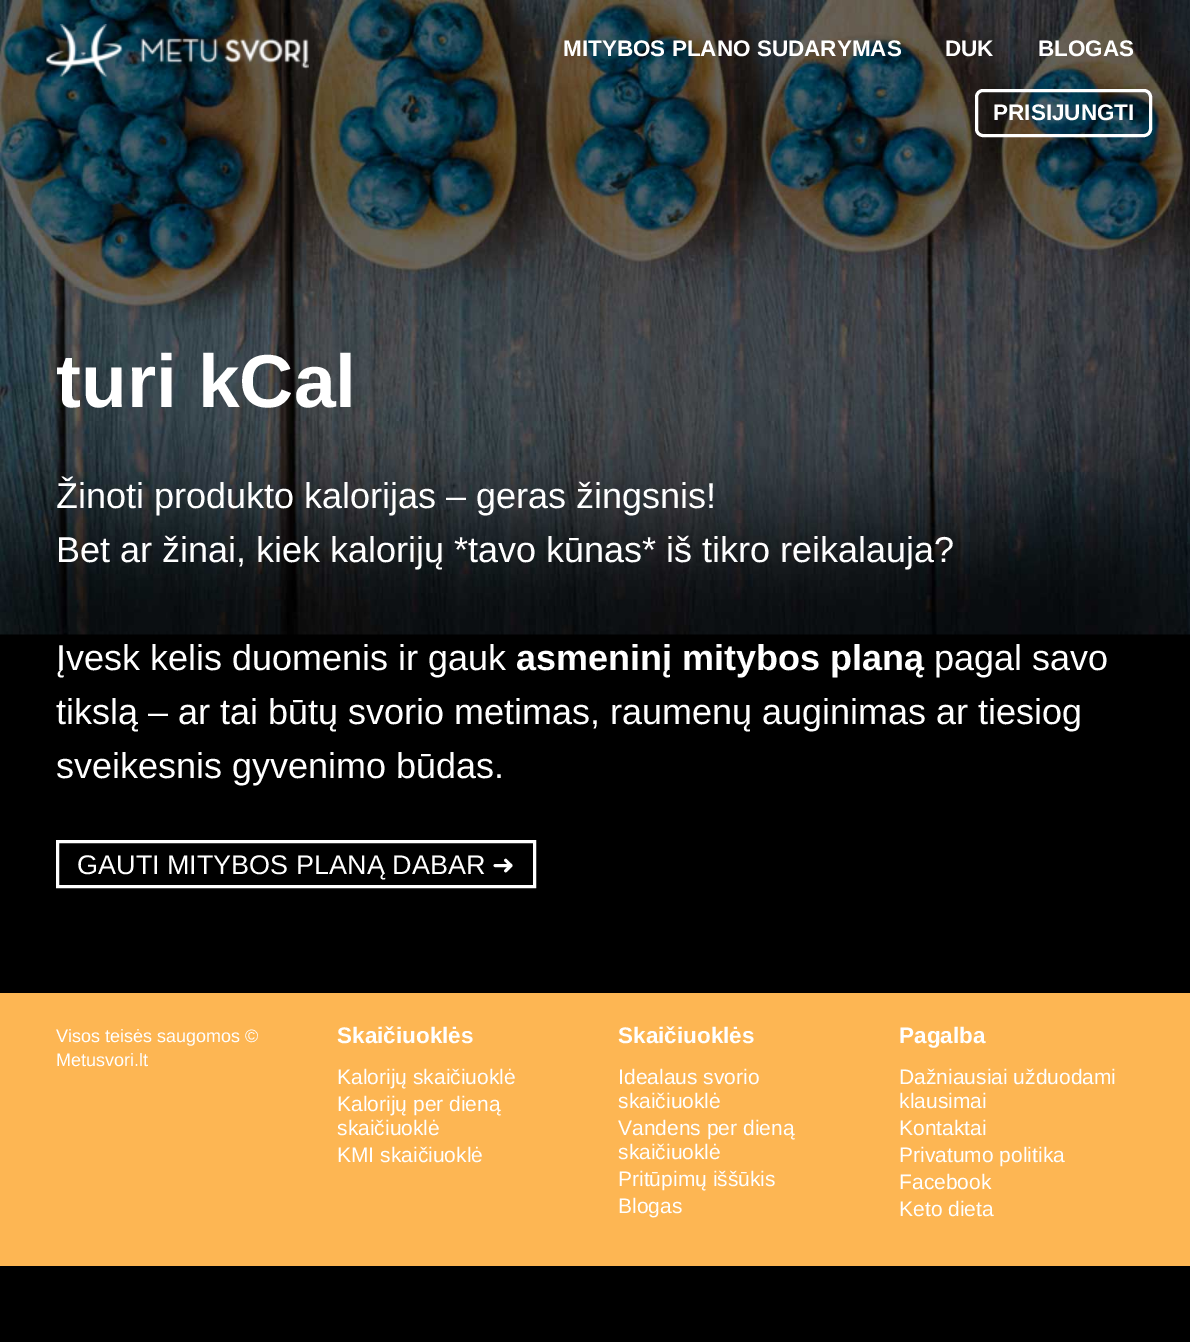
%!PS
<< /PageSize [1190 1342] >> setpagedevice
/rgb { dup -16 bitshift 255 div exch dup -8 bitshift 255 and 255 div exch 255 and 255 div setrgbcolor } def
/font { [ exch dup neg 0 0 3 -1 roll 0 0 ] selectfont } def
/text { moveto show } def
/roundrect { 5 dict begin { /r /h /w /y /x } { exch def } forall
  x r add y moveto x w add y 2 copy h add r arct x w add y h add x 1 index r arct
  x y h add x y r arct x y 2 copy exch w add exch r arct closepath end } def
/picture { 5 dict begin { /h /w /y /x /name } { exch def } forall
  gsave x y translate w h scale
  w h 8 [w 0 0 h 0 0] name (r) file false 3 colorimage grestore end } def
0 1342 translate 1 -1 scale
4 setmiterlimit
/s1 { /LiberationSans-Bold 22.5 font 16#FFFFFF rgb } def
/s2 { /LiberationSans-Bold 75 font 16#FFFFFF rgb } def
/s3 { /LiberationSans-Regular 36 font 16#FFFFFF rgb } def
/s4 { /LiberationSans-Bold 36 font 16#FFFFFF rgb } def
/s5 { /LiberationSans-Regular 27 font 16#FFFFFF rgb } def
/s6 { /DejaVuSans-Regular 27 font 16#FFFFFF rgb } def
/s7 { /LiberationSans-Regular 18 font 16#FFFFFF rgb } def
/s8 { /LiberationSans-Regular 21 font 16#FFFFFF rgb } def
16#000000 rgb
0 0 1190 1342 rectfill
(pic1.raw) 0 0 1190 635 picture
(pic2.raw) 46 24 263 53 picture
s1
(MITYBOS PLANO SUDARYMAS) 563 56 text
(DUK) 945 56 text
(BLOGAS) 1038 56 text
3 setlinewidth
976.5 90.5 174 45 6.5 roundrect stroke
(PRISIJUNGTI) 993 120 text
s2
(turi kCal) 56 407 text
s3
(Žinoti produkto kalorijas – geras žingsnis!) 56 508 text
(Bet ar žinai, kiek kalorijų *tavo kūnas* iš tikro reikalauja?) 56 562 text
(Įvesk kelis duomenis ir gauk) 56 670 text
s4
(asmeninį mitybos planą) 516 670 text
s3
(pagal savo) 934 670 text
(tikslą – ar tai būtų svorio metimas, raumenų auginimas ar tiesiog) 56 724 text
(sveikesnis gyvenimo būdas.) 56 778 text
57.5 841.5 477 45 rectstroke
s5
(GAUTI MITYBOS PLANĄ DABAR) 77 874 text
s6
(➜) 492 874 text
16#FDB653 rgb
0 993 1190 273 rectfill
s7
(Visos teisės saugomos ©) 56 1042 text
(Metusvori.lt) 56 1066 text
s1
(Skaičiuoklės) 337 1043 text
s8
(Kalorijų skaičiuoklė) 337 1084 text
(Kalorijų per dieną) 337 1111 text
(skaičiuoklė) 337 1135 text
(KMI skaičiuoklė) 337 1162 text
s1
(Skaičiuoklės) 618 1043 text
s8
(Idealaus svorio) 618 1084 text
(skaičiuoklė) 618 1108 text
(Vandens per dieną) 618 1135 text
(skaičiuoklė) 618 1159 text
(Pritūpimų iššūkis) 618 1186 text
(Blogas) 618 1213 text
s1
(Pagalba) 899 1043 text
s8
(Dažniausiai užduodami) 899 1084 text
(klausimai) 899 1108 text
(Kontaktai) 899 1135 text
(Privatumo politika) 899 1162 text
(Facebook) 899 1189 text
(Keto dieta) 899 1216 text
showpage
